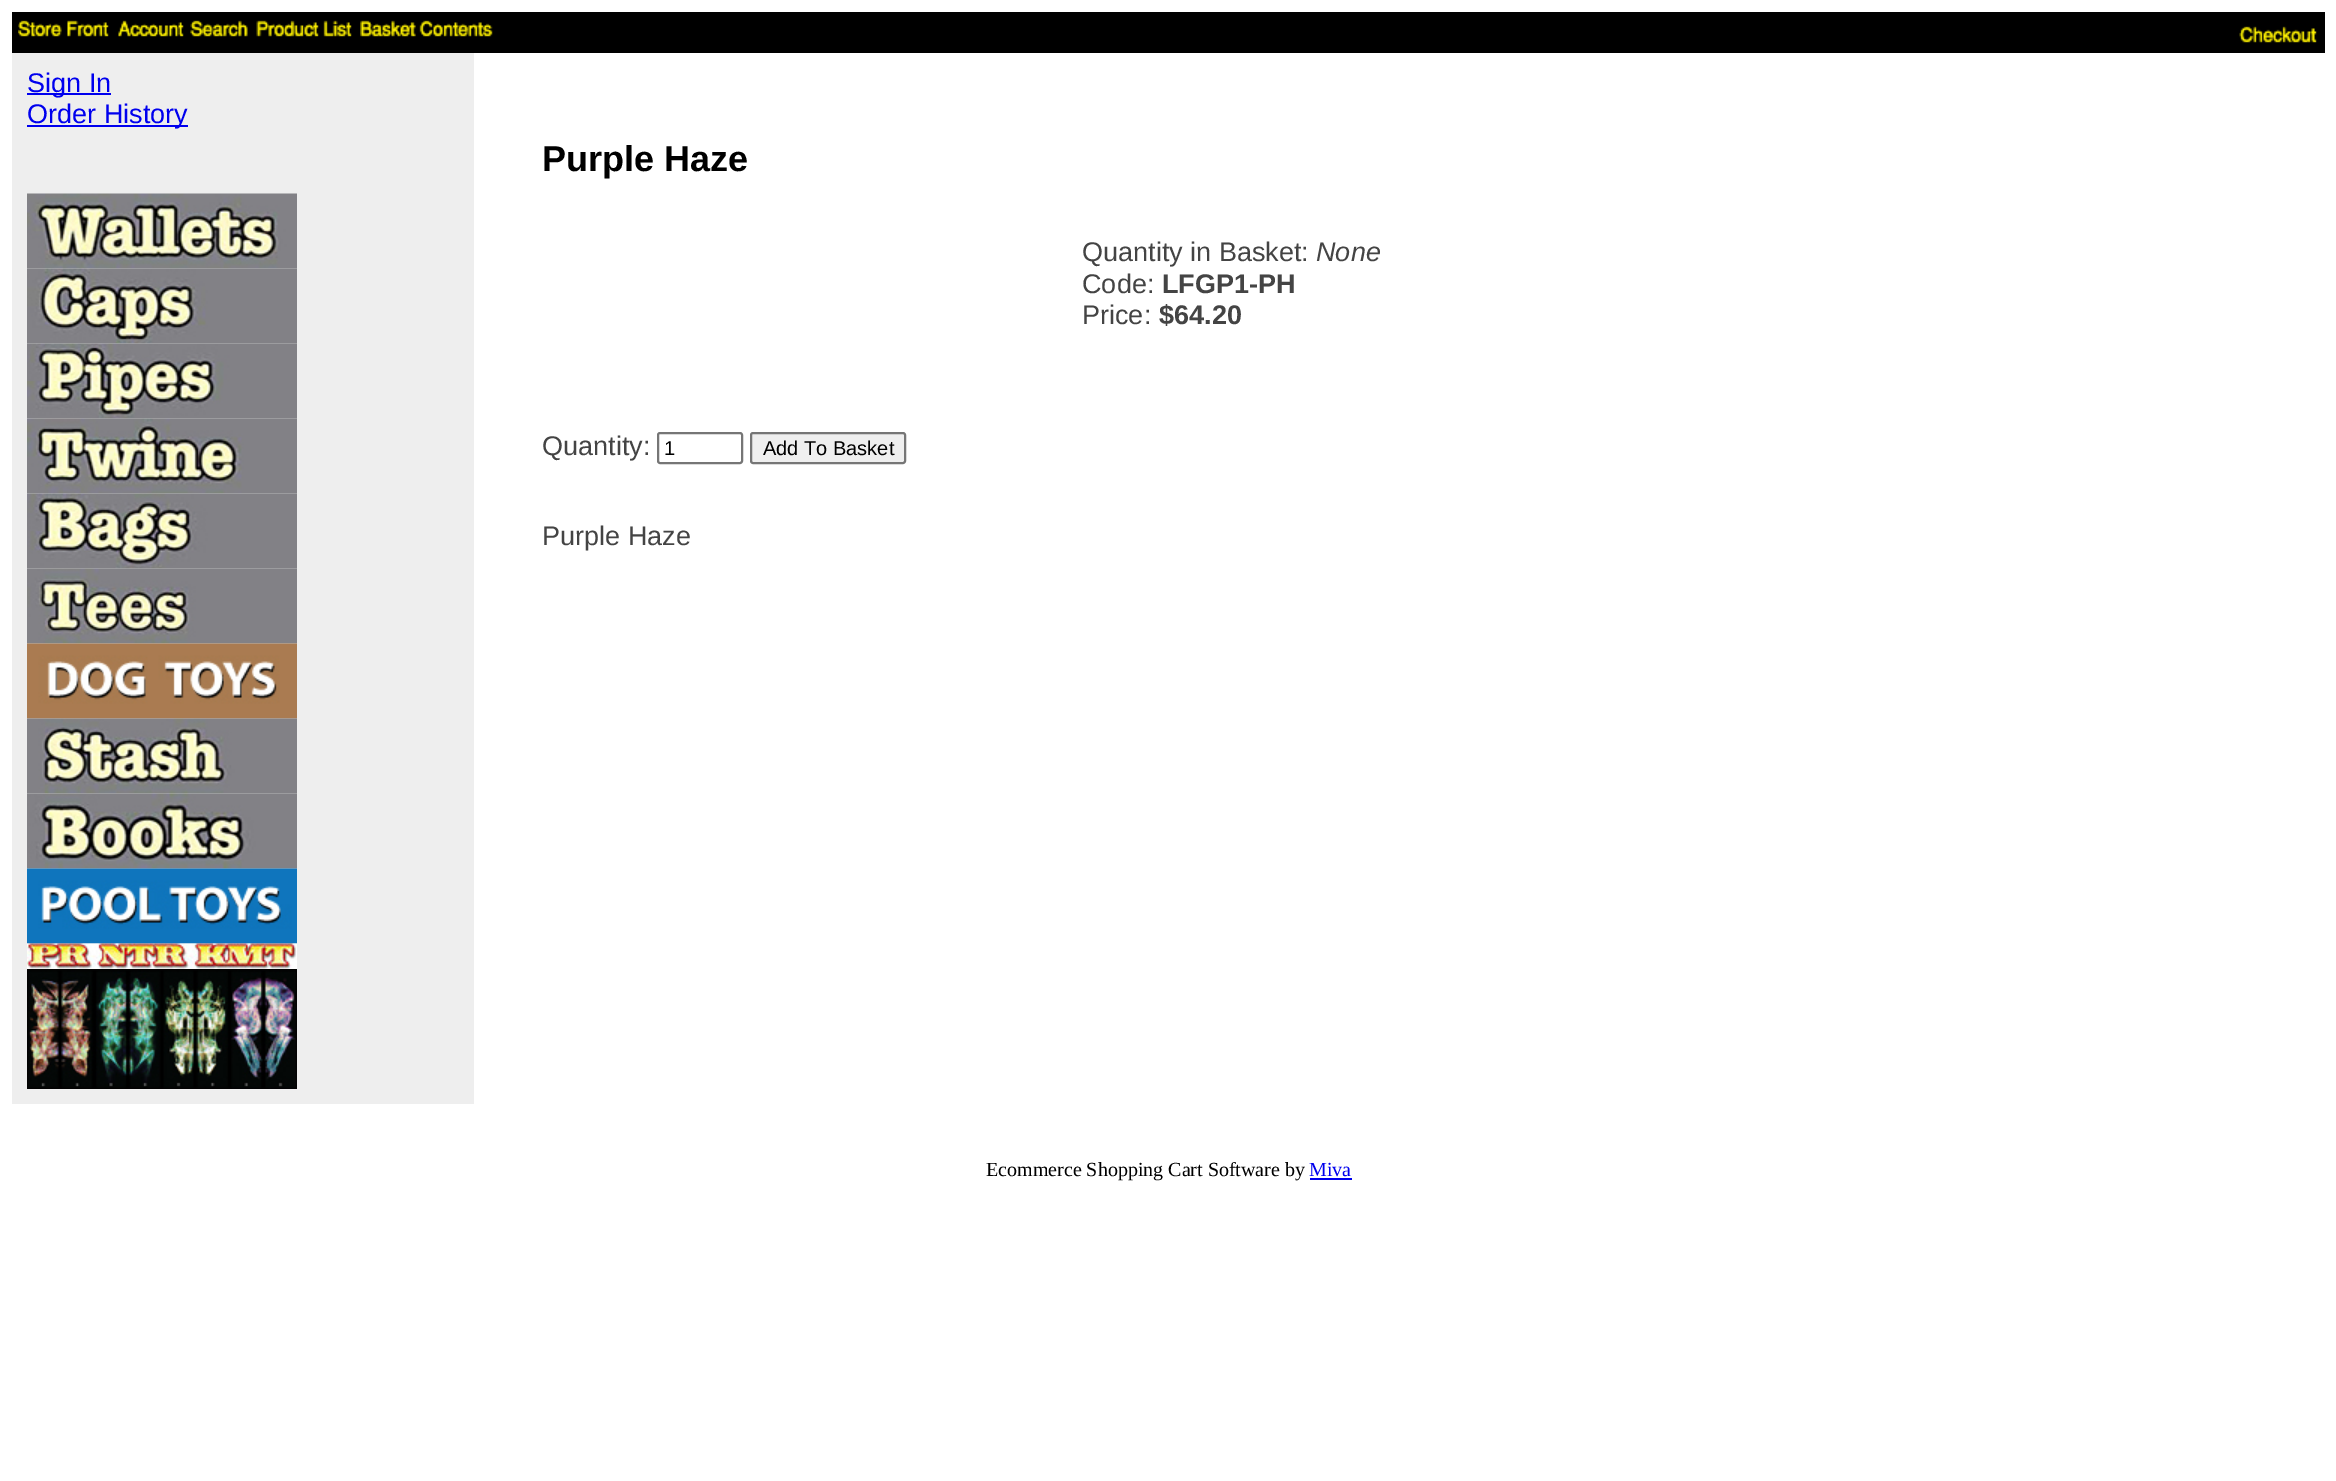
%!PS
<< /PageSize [2336 1481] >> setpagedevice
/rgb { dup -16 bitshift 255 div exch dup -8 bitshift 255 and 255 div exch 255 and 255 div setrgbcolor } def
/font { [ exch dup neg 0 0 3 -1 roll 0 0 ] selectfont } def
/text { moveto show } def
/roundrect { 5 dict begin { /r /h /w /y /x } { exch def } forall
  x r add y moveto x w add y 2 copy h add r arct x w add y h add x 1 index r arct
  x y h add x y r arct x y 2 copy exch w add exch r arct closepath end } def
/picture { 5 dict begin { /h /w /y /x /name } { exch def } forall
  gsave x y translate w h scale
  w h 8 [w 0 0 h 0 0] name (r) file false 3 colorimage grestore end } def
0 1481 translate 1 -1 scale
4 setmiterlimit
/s1 { /LiberationSans-Regular 27 font 16#0000EE rgb } def
/s2 { /LiberationSans-Bold 36 font 16#000000 rgb } def
/s3 { /LiberationSans-Regular 27 font 16#444444 rgb } def
/s4 { /LiberationSans-Italic 27 font 16#444444 rgb } def
/s5 { /LiberationSans-Bold 27 font 16#444444 rgb } def
/s6 { /LiberationSans-Regular 20 font 16#000000 rgb } def
/s7 { /LiberationSerif-Regular 20 font 16#000000 rgb } def
/s8 { /LiberationSerif-Regular 20 font 16#0000EE rgb } def
16#FFFFFF rgb
0 0 2336 1481 rectfill
16#000000 rgb
12 12 2313 41 rectfill
(pic1.raw) 18 20 91 17 picture
(pic2.raw) 118 20 66 17 picture
(pic3.raw) 190 20 58 17 picture
(pic4.raw) 256 20 96 17 picture
(pic5.raw) 360 20 133 17 picture
(pic6.raw) 2239 26 78 17 picture
16#EEEEEE rgb
12 53 462 1051 rectfill
16#0000EE rgb
27 93 84 2 rectfill
s1
(Sign In) 27 92 text
27 125 161 2 rectfill
(Order History) 27 123 text
(pic7.raw) 27 193 270 76 picture
(pic8.raw) 27 268 270 76 picture
(pic9.raw) 27 343 270 76 picture
(pic10.raw) 27 418 270 76 picture
(pic11.raw) 27 493 270 76 picture
(pic12.raw) 27 568 270 76 picture
(pic13.raw) 27 643 270 76 picture
(pic14.raw) 27 718 270 76 picture
(pic15.raw) 27 793 270 76 picture
(pic16.raw) 27 868 270 76 picture
(pic17.raw) 27 943 270 26 picture
(pic18.raw) 27 969 270 120 picture
s2
(Purple Haze) 542 171 text
s3
(Quantity in Basket:) 1082 261 text
s4
(None) 1316 261 text
s3
(Code:) 1082 293 text
s5
(LFGP1-PH) 1162 293 text
s3
(Price:) 1082 324 text
s5
($64.20) 1159 324 text
s3
(Quantity:) 542 455 text
16#767676 rgb
2 setlinewidth
658 433 84 30 2 roundrect stroke
s6
(1) 664 455 text
16#EFEFEF rgb
751 433 154 30 2 roundrect gsave fill grestore
16#767676 rgb
stroke
s6
(Add To Basket) 763 455 text
s3
(Purple Haze) 542 545 text
s7
(Ecommerce Shopping Cart Software by) 986 1176 text
s8
(Miva) 1309 1176 text
1310 1178 42 2 rectfill
showpage
